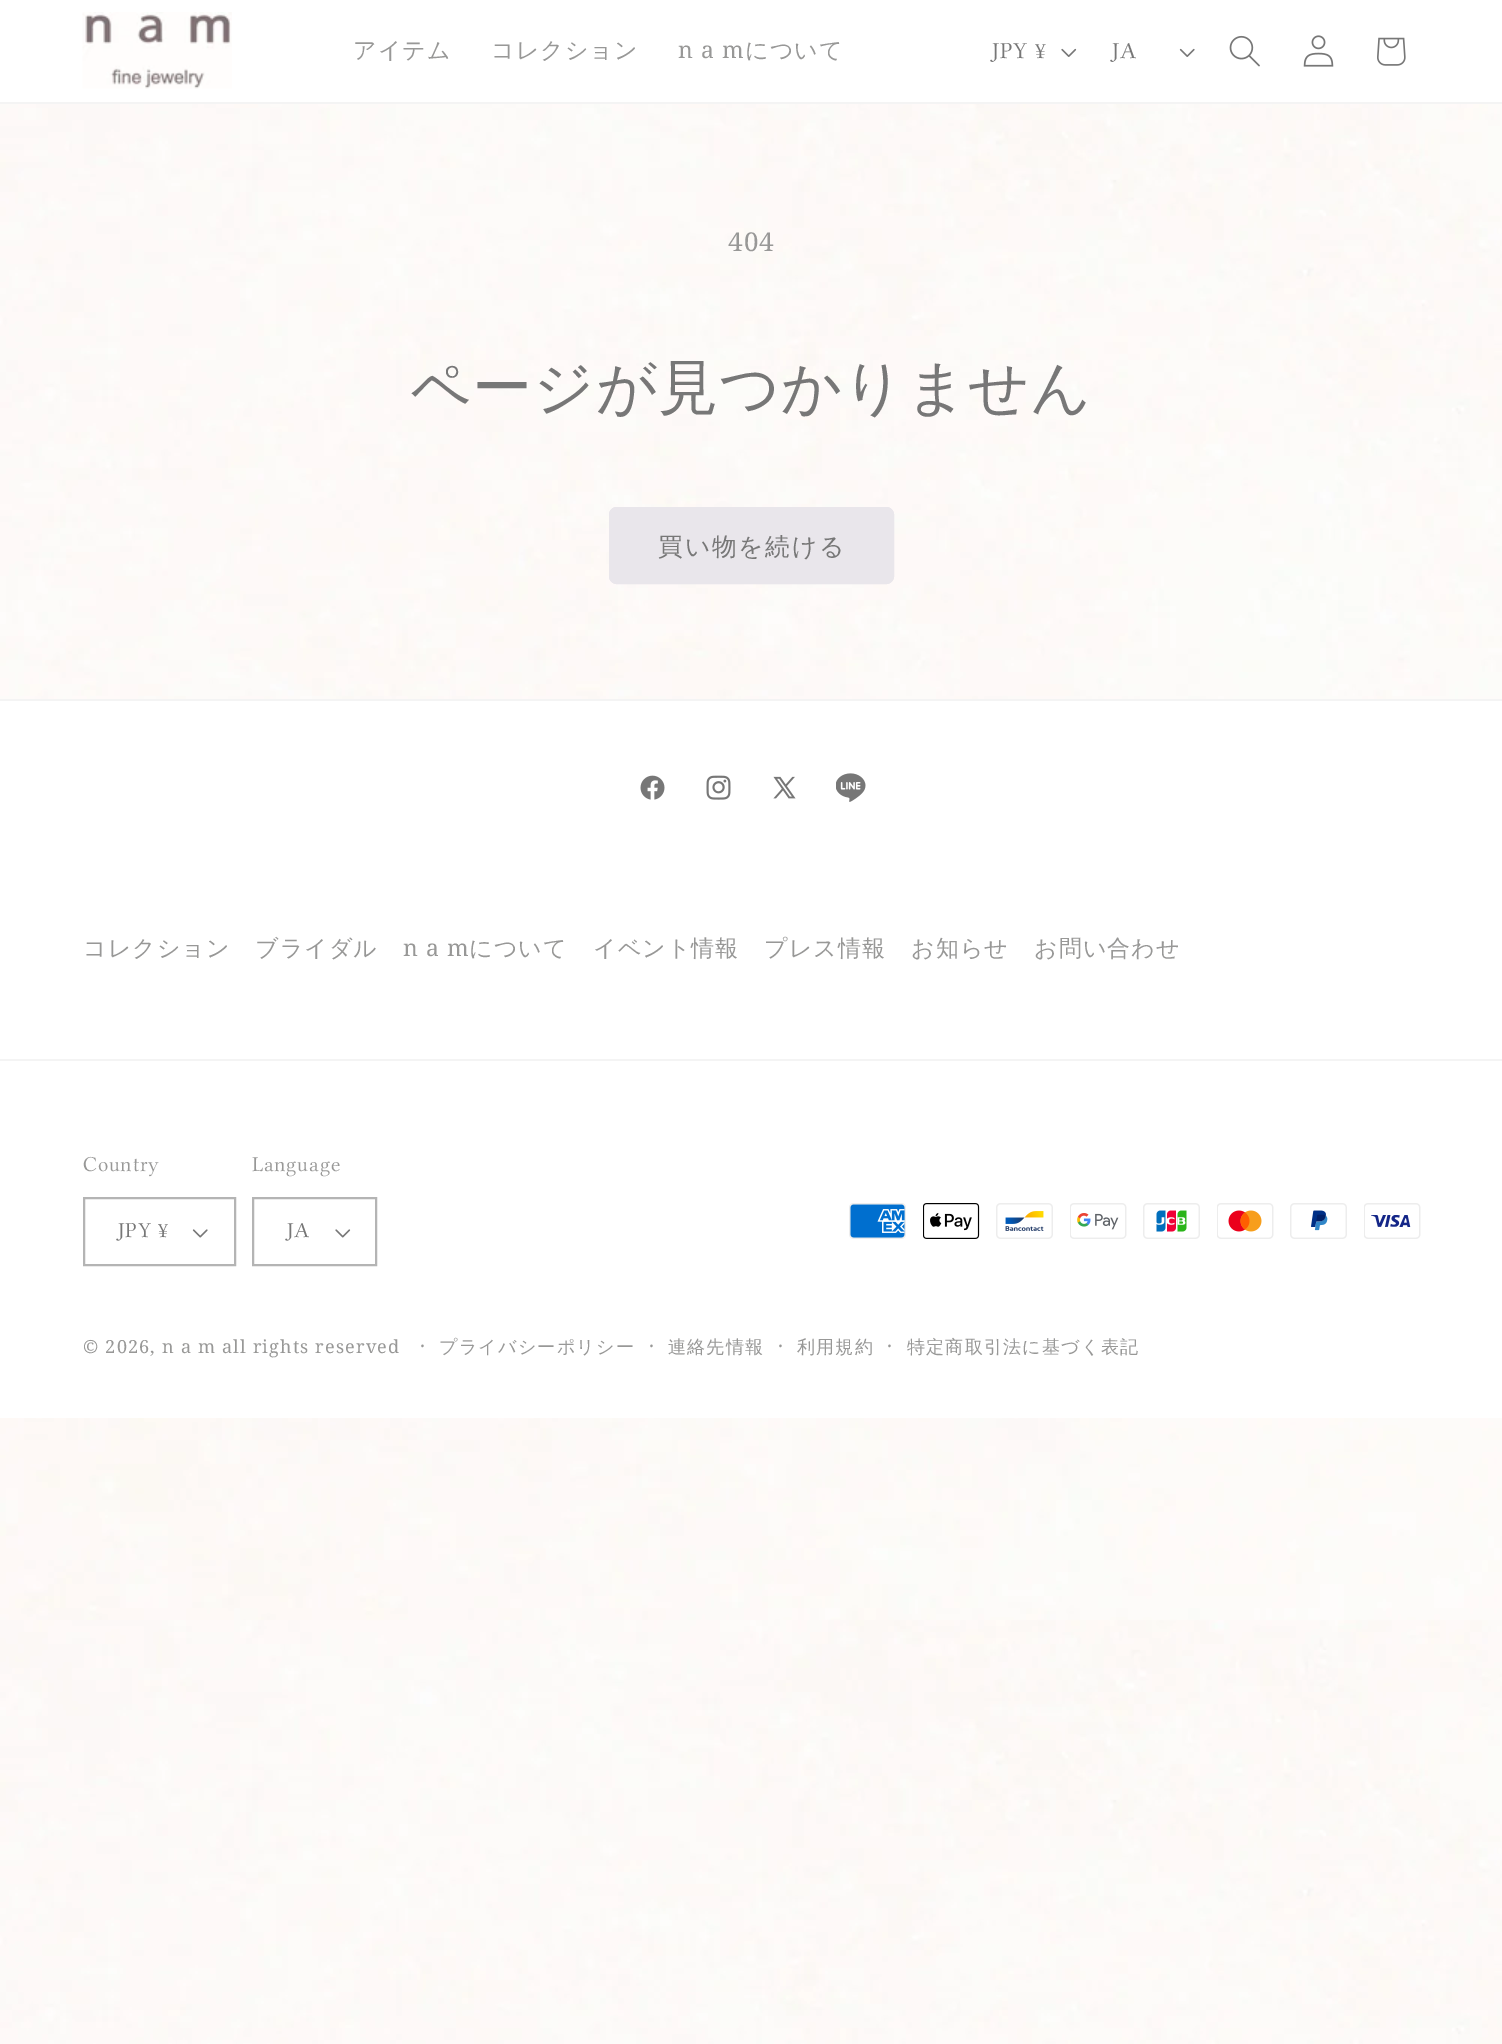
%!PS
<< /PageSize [1502 2044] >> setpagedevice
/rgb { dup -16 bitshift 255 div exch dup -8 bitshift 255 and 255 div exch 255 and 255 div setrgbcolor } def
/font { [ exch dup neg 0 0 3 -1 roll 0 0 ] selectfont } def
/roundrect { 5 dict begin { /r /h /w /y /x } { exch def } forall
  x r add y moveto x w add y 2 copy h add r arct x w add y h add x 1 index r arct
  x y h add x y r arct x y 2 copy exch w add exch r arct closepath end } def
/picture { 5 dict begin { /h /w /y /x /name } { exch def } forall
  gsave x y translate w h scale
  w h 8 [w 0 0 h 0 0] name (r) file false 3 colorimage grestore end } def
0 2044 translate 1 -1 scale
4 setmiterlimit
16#FFFFFF rgb
0 0 1502 2044 rectfill
(pic1.raw) 0 104 1502 1940 picture
16#F4F4F4 rgb
0 102 1502 2 rectfill
(pic2.raw) 82 12 150 77 picture
/WenQuanYiZenHei-Medium 23 font
16#989897 rgb
353 58 moveto 1 0 (アイテム) ashow
491 58 moveto 1 0 (コレクション) ashow
/NotoSerif-Regular 23 font
678 58 moveto 1 0 (n a m) ashow
/WenQuanYiZenHei-Medium 23 font
745 58 moveto 1 0 (について) ashow
/LibertinusSerifDisplay-Regular 23 font
16#777777 rgb
991 58 moveto 1 0 (JPY ¥) ashow
(pic3.raw) 1061 48 16 9 picture
1111 58 moveto 1 0 (JA) ashow
(pic4.raw) 1179 48 16 9 picture
(pic5.raw) 1229 35 31 32 picture
(pic6.raw) 1303 35 31 32 picture
(pic7.raw) 1377 37 29 29 picture
/NotoSerif-Regular 26 font
16#989897 rgb
728 251 moveto 1 0 (404) ashow
/WenQuanYiZenHei-Medium 60 font
16#777777 rgb
410 408 moveto 0.9 0 (ページが見つかりません) ashow
16#E9E6EB rgb
609 507 285 77 8 roundrect fill
2 setlinewidth
610 508 283 75 7 roundrect stroke
/WenQuanYiZenHei-Medium 24.75 font
16#777777 rgb
658 555 moveto 1.75 0 (買い物を続ける) ashow
16#FFFFFF rgb
0 701 1502 717 rectfill
16#F4F4F4 rgb
0 699 1502 2 rectfill
(pic8.raw) 640 775 25 25 picture
(pic9.raw) 706 775 25 25 picture
(pic10.raw) 773 776 23 23 picture
(pic11.raw) 836 773 30 29 picture
/WenQuanYiZenHei-Medium 23 font
16#989897 rgb
83 956 moveto 1 0 (コレクション) ashow
255 956 moveto 1 0 (ブライダル) ashow
/NotoSerif-Regular 23 font
403 956 moveto 1 0 (n a m) ashow
/WenQuanYiZenHei-Medium 23 font
469 956 moveto 1 0 (について) ashow
593 956 moveto 1 0 (イベント情報) ashow
764 956 moveto 1 0 (プレス情報) ashow
911 956 moveto 1 0 (お知らせ) ashow
1034 956 moveto 1 0 (お問い合わせ) ashow
16#F4F4F4 rgb
0 1059 1502 2 rectfill
/LibertinusSerifDisplay-Regular 21.5 font
16#989897 rgb
83 1171 moveto 0.75 0 (Country) ashow
(pic12.raw) 192 1229 16 9 picture
16#B4B4B4 rgb
84 1198 151 67 rectstroke
16#777777 rgb
117 1237 moveto 1 0 (JPY ¥) ashow
16#989897 rgb
252 1171 moveto 0.75 0 (Language) ashow
(pic13.raw) 335 1229 16 9 picture
16#B4B4B4 rgb
253 1198 123 67 rectstroke
16#777777 rgb
286 1237 moveto 1 0 (JA) ashow
(pic14.raw) 849 1203 57 36 picture
(pic15.raw) 923 1203 57 36 picture
(pic16.raw) 996 1203 57 36 picture
(pic17.raw) 1070 1203 57 36 picture
(pic18.raw) 1143 1203 57 36 picture
(pic19.raw) 1217 1203 57 36 picture
(pic20.raw) 1290 1203 57 36 picture
(pic21.raw) 1364 1203 57 36 picture
/NotoSerif-Regular 18.1 font
16#989897 rgb
83 1353 moveto 1.15 0 (© 2026, n a m all rights reserved) ashow
/NotoSerif-Regular 20 font
420 1353 moveto 1.15 0 (·) ashow
/WenQuanYiZenHei-Medium 18.1 font
439 1353 moveto 1.15 0 (プライバシーポリシー) ashow
/NotoSerif-Regular 20 font
649 1353 moveto 1.15 0 (·) ashow
/WenQuanYiZenHei-Medium 18.1 font
668 1353 moveto 1.15 0 (連絡先情報) ashow
/NotoSerif-Regular 20 font
778 1353 moveto 1.15 0 (·) ashow
/WenQuanYiZenHei-Medium 18.1 font
797 1353 moveto 1.15 0 (利用規約) ashow
/NotoSerif-Regular 20 font
887 1353 moveto 1.15 0 (·) ashow
/WenQuanYiZenHei-Medium 18.1 font
907 1353 moveto 1.15 0 (特定商取引法に基づく表記) ashow
showpage
